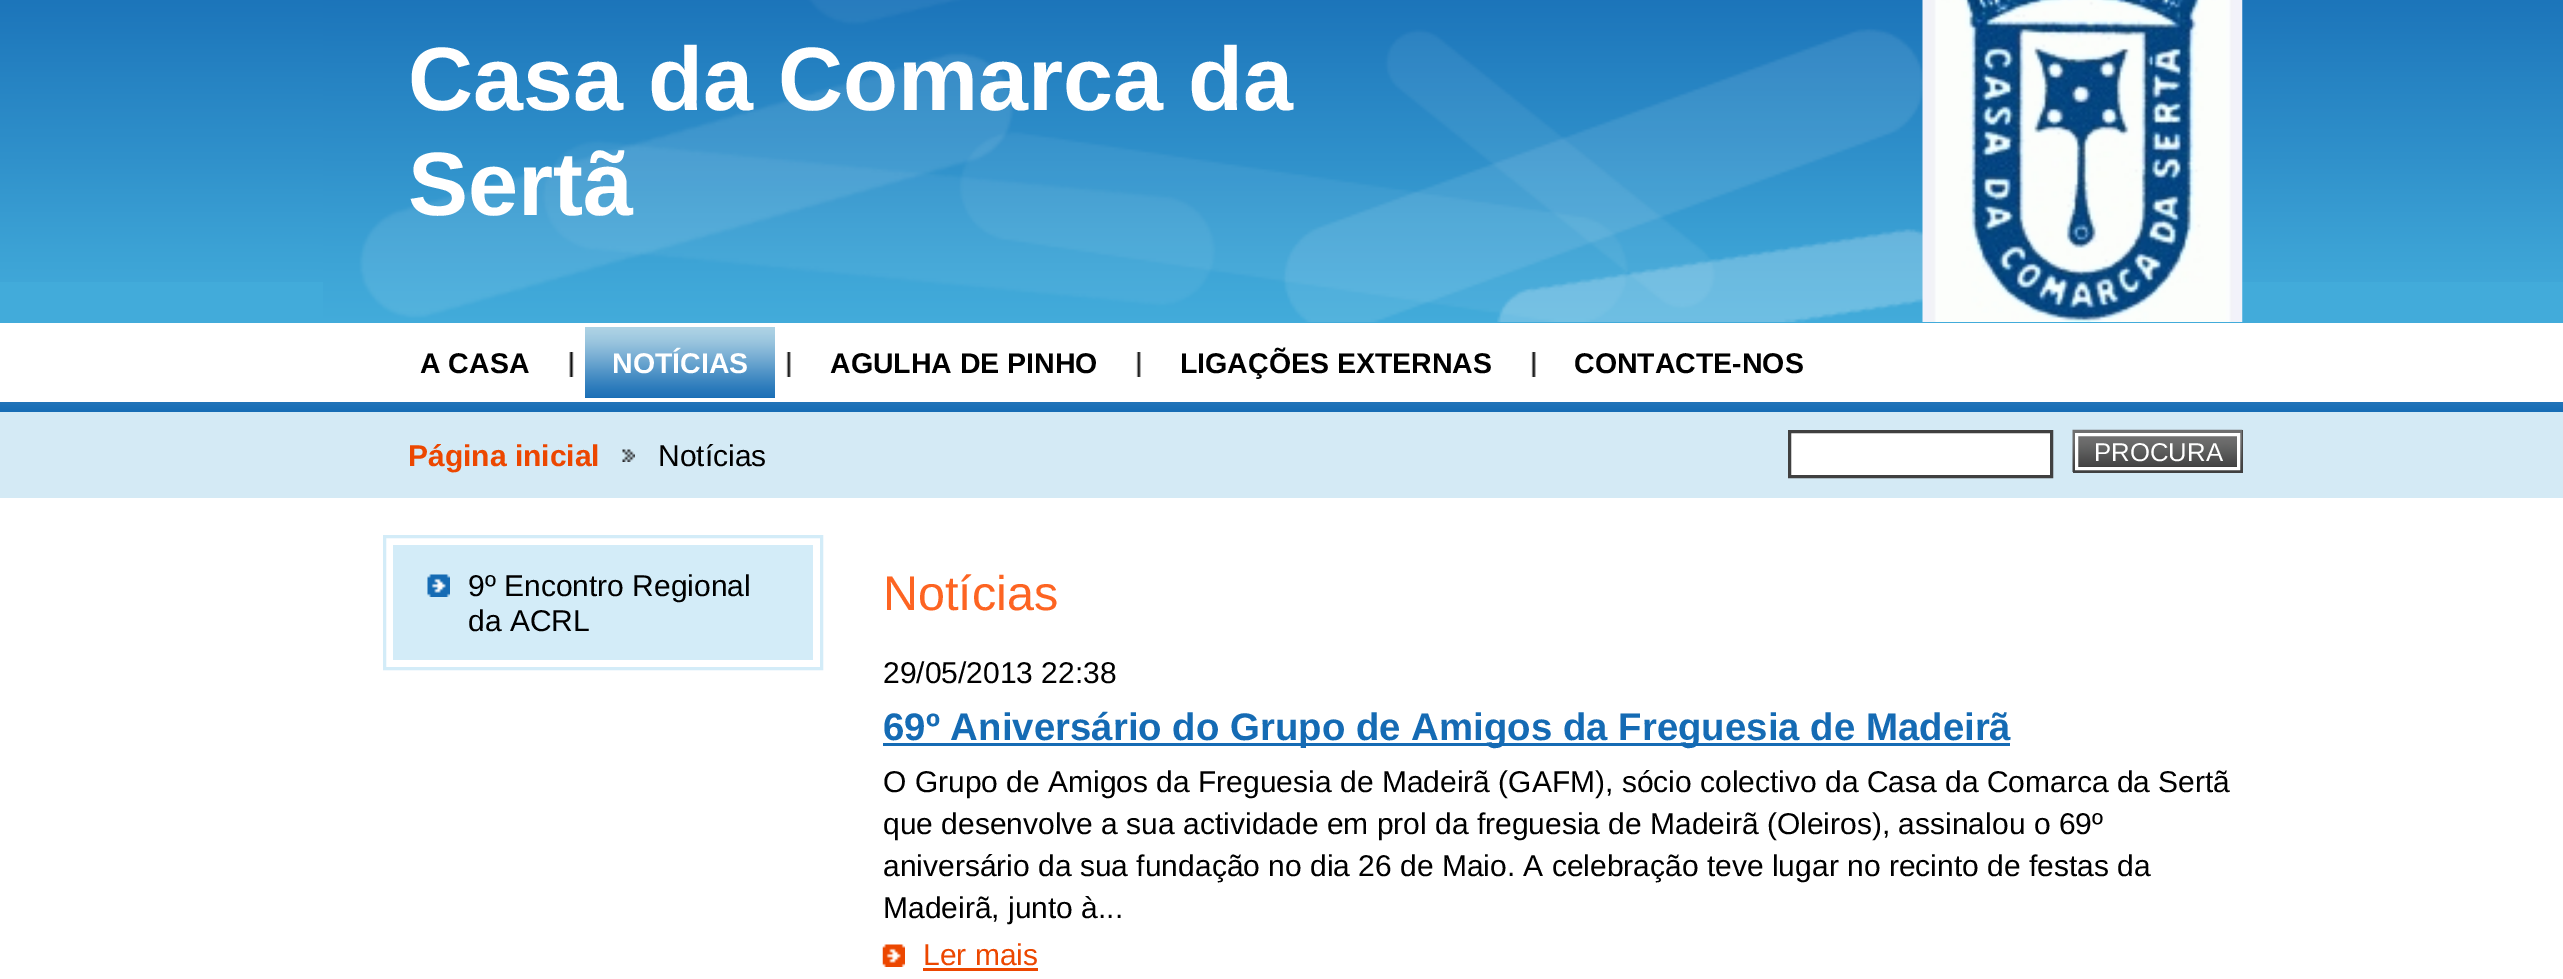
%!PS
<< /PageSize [2563 979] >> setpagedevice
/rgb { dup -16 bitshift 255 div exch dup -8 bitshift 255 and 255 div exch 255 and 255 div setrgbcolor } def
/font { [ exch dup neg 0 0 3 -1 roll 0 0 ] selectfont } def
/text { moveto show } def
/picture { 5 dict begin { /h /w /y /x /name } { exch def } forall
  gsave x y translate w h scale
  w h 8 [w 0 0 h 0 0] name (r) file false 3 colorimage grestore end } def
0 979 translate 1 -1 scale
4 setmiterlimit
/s1 { /LiberationSans-Bold 90 font 16#FFFFFF rgb } def
/s2 { /LiberationSans-Bold 28.5 font 16#000000 rgb } def
/s3 { /LiberationSans-Bold 28.5 font 16#FFFFFF rgb } def
/s4 { /LiberationSans-Bold 30 font 16#EC4700 rgb } def
/s5 { /LiberationSans-Regular 30 font 16#000000 rgb } def
/s6 { /LiberationSans-Regular 25.75 font 16#FFFFFF rgb } def
/s7 { /LiberationSans-Regular 48.5 font 16#FD6422 rgb } def
/s8 { /LiberationSans-Bold 38.4 font 16#156BB4 rgb } def
/s9 { /LiberationSans-Regular 30 font 16#EC4700 rgb } def
16#FFFFFF rgb
0 0 2563 979 rectfill
16#42ABDA rgb
0 282 2563 41 rectfill
(pic1.raw) 0 0 2563 282 picture
(pic2.raw) 323 0 1600 322 picture
s1
(Casa da Comarca da) 408 110 text
(Sertã) 408 215 text
(pic3.raw) 1922 0 321 322 picture
s2
(A CASA) 420 373 text
(pic4.raw) 569 352 5 25 picture
16#186DB5 rgb
585 397 190 1 rectfill
(pic5.raw) 585 327 190 70 picture
s3
(NOTÍCIAS) 612 373 text
(pic6.raw) 786 352 5 25 picture
s2
(AGULHA DE PINHO) 830 373 text
(pic6.raw) 1136 352 5 25 picture
(LIGAÇÕES EXTERNAS) 1180 373 text
(pic7.raw) 1531 352 5 25 picture
(CONTACTE-NOS) 1574 373 text
16#D4EAF5 rgb
0 412 2563 86 rectfill
(pic8.raw) 0 402 2563 10 picture
s4
(Página inicial) 408 466 text
(pic9.raw) 622 449 13 13 picture
s5
(Notícias) 658 466 text
16#FFFFFF rgb
1789.5 431.5 moveto 2051.5 431.5 lineto 2051.5 476.5 lineto 1789.5 476.5 lineto closepath gsave fill grestore
16#404040 rgb
3 setlinewidth
stroke
2073 430 170 43 rectfill
(pic10.raw) 2072 429 171 43 picture
2078 466 159 1 rectfill
(pic11.raw) 2078 436 159 30 picture
16#FFFFFF rgb
2076.5 434.5 162 34 rectstroke
s6
(PROCURA) 2094 461 text
16#D3ECF8 rgb
384.5 536.5 437 132 rectstroke
393 545 420 115 rectfill
(pic12.raw) 427 574 23 23 picture
s5
(9º Encontro Regional) 468 596 text
(da ACRL) 468 631 text
s7
(Notícias) 883 610 text
s5
(29/05/2013 22:38) 883 683 text
16#156BB4 rgb
883 743 1127 3 rectfill
s8
(69º Aniversário do Grupo de Amigos da Freguesia de Madeirã) 883 740 text
s5
(O Grupo de Amigos da Freguesia de Madeirã \(GAFM\), sócio colectivo da Casa da Comarca da Sertã) 883 792 text
(que desenvolve a sua actividade em prol da freguesia de Madeirã \(Oleiros\), assinalou o 69º) 883 834 text
(aniversário da sua fundação no dia 26 de Maio. A celebração teve lugar no recinto de festas da) 883 876 text
(Madeirã, junto à...) 883 918 text
(pic13.raw) 882 944 23 23 picture
s9
(Ler mais) 923 965 text
923 968 115 3 rectfill
showpage
